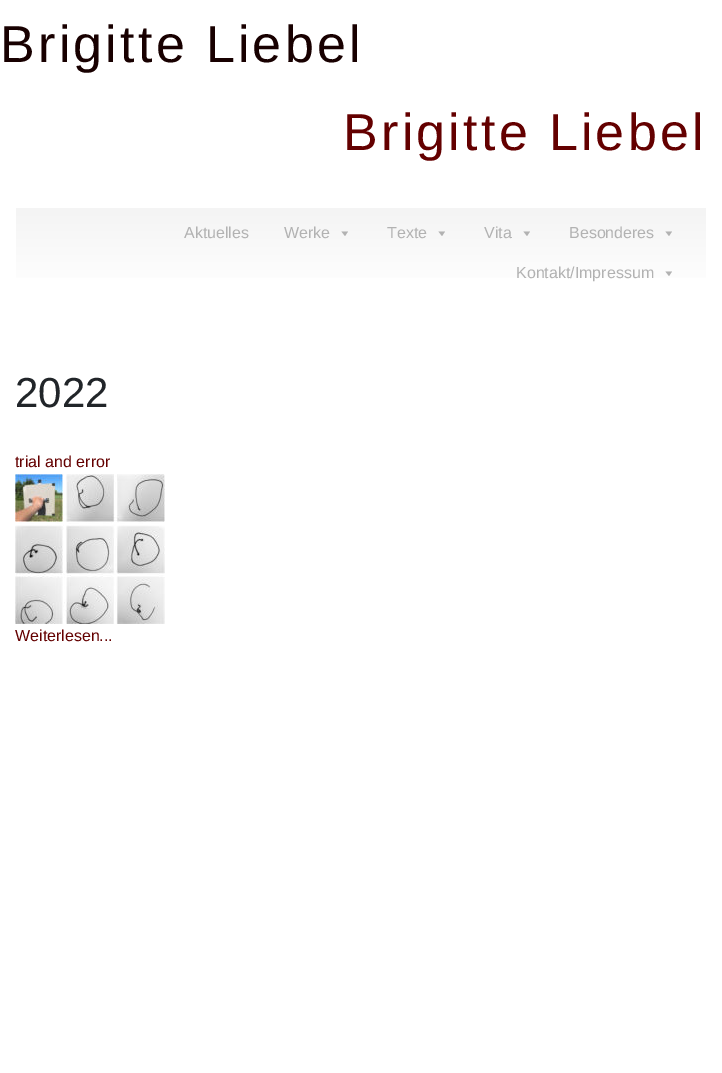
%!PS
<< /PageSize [722 1073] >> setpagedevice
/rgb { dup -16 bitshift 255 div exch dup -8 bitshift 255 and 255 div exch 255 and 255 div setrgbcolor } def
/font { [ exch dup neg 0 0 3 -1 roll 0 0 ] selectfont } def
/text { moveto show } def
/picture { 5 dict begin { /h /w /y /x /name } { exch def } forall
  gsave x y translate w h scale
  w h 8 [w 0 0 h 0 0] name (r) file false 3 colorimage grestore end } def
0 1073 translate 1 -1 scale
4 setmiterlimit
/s1 { /LiberationSans-Regular 16 font 16#B2B2B2 rgb } def
/s2 { /LiberationSans-Regular 42 font 16#212529 rgb } def
/s3 { /LiberationSans-Regular 16 font 16#640000 rgb } def
16#FFFFFF rgb
0 0 722 1073 rectfill
/LiberationSans-Regular 52 font
16#180000 rgb
0 62 moveto 3.25 0 (Brigitte Liebel) ashow
16#640000 rgb
343 150 moveto 3.25 0 (Brigitte Liebel) ashow
gsave 16 208 moveto 706 208 lineto 706 278 lineto 16 278 lineto closepath clip newpath
<< /ShadingType 2 /ColorSpace /DeviceRGB /Coords [361 208 361 298] /Extend [true true] /Function << /FunctionType 2 /Domain [0 1] /C0 [0.957 0.957 0.957] /C1 [1 1 1] /N 1 >> >> shfill grestore
s1
(Aktuelles) 184 238 text
(Werke) 284 238 text
348 231.5 moveto 345 236 lineto 341.5 231.5 lineto closepath fill
(Texte) 387 238 text
445 231.5 moveto 442 236 lineto 438.5 231.5 lineto closepath fill
(Vita) 484 238 text
530 231.5 moveto 527 236 lineto 523.5 231.5 lineto closepath fill
(Besonderes) 569 238 text
672 231.5 moveto 669 236 lineto 665.5 231.5 lineto closepath fill
(Kontakt/Impressum) 516 278 text
672 271.5 moveto 669 276 lineto 665.5 271.5 lineto closepath fill
s2
(2022) 15 407 text
s3
(trial and error) 15 467 text
(pic1.raw) 15 474 150 150 picture
(Weiterlesen...) 15 641 text
showpage
